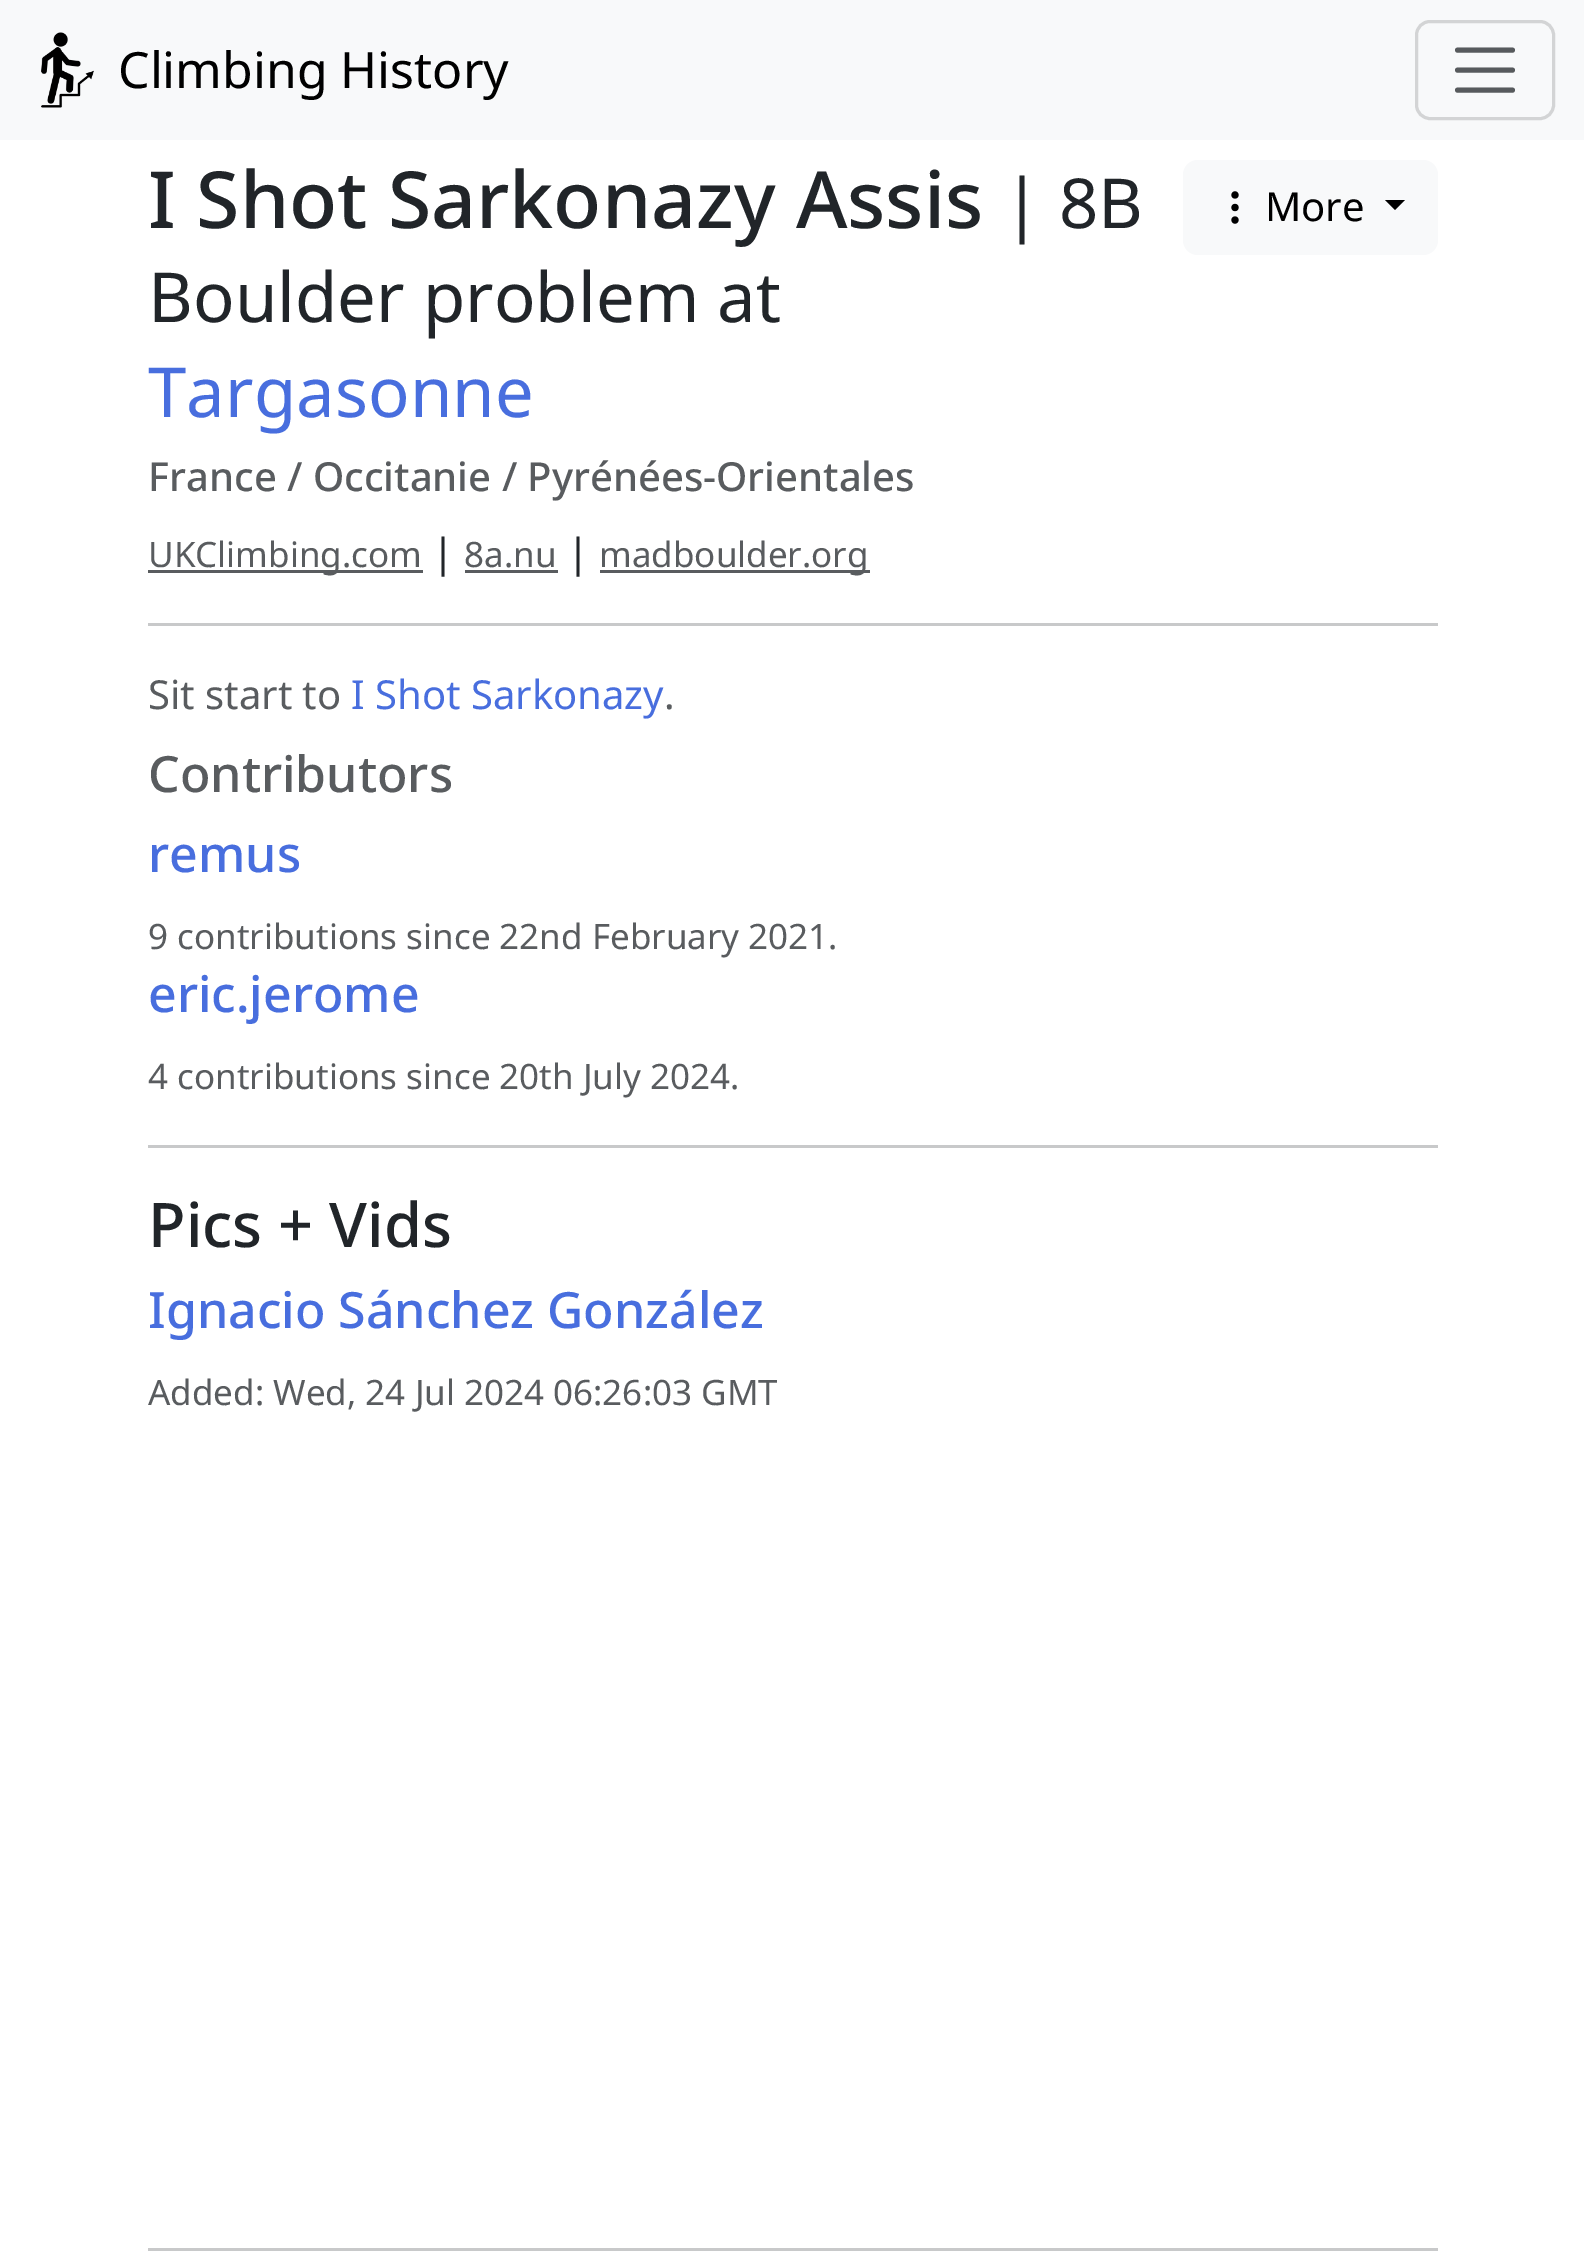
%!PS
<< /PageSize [1584 2263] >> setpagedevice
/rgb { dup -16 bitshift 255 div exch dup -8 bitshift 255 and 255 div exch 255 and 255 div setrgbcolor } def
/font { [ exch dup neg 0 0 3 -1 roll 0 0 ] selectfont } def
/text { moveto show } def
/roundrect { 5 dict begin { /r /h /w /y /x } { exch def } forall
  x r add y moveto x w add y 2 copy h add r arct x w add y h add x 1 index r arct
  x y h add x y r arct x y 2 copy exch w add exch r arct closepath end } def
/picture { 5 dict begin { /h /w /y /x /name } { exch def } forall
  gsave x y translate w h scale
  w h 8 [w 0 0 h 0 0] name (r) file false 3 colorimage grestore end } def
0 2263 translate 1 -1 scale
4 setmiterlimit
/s1 { /NotoSans-Regular 50 font 16#000000 rgb } def
/s2 { /NotoSans-Medium 78.75 font 16#212529 rgb } def
/s3 { /NotoSans-Regular 69 font 16#212529 rgb } def
/s4 { /NotoSans-Regular 69 font 16#486EDE rgb } def
/s5 { /NotoSans-Regular 40 font 16#000000 rgb } def
/s6 { /NotoSans-Medium 40 font 16#595C5F rgb } def
/s7 { /NotoSans-Regular 35 font 16#595C5F rgb } def
/s8 { /NotoSans-Regular 40 font 16#212529 rgb } def
/s9 { /NotoSans-Regular 40 font 16#595C5F rgb } def
/s10 { /NotoSans-Regular 40 font 16#486EDE rgb } def
/s11 { /NotoSans-Medium 50 font 16#595C5F rgb } def
/s12 { /NotoSans-Medium 50 font 16#486EDE rgb } def
/s13 { /NotoSans-Medium 61.5 font 16#212529 rgb } def
16#FFFFFF rgb
0 0 1584 2263 rectfill
16#F8F9FA rgb
0 0 1584 140 rectfill
(pic1.raw) 41 32 53 76 picture
s1
(Climbing History) 118 88 text
16#D3D4D5 rgb
3 setlinewidth
1416.5 21.5 137 97 13.5 roundrect stroke
16#575A5D rgb
5 setlinewidth
1 setlinecap
1457.5 50 moveto 1512.5 50 lineto 1457.5 70 moveto 1512.5 70 lineto 1457.5 90 moveto 1512.5 90 lineto stroke
s2
(I Shot Sarkonazy Assis) 148 228 text
s3
(| 8B) 1003 228 text
(Boulder problem at) 148 322 text
s4
(Targasonne) 148 417 text
16#F8F9FA rgb
1183 160 255 95 15 roundrect fill
(pic2.raw) 1231 191 8 33 picture
s5
(More) 1265 221 text
1385 200 moveto 1405 200 lineto 1395 210 lineto closepath fill
s6
(France / Occitanie / Pyrénées-Orientales) 148 491 text
148 570 275 3 rectfill
s7
(UKClimbing.com) 148 567 text
s8
(|) 432 567 text
s7
(8a.nu) 464 567 text
465 570 93 3 rectfill
s8
(|) 567 567 text
16#595C5F rgb
600 570 270 3 rectfill
s7
(madboulder.org) 599 567 text
16#C8C9CA rgb
148 623 1290 3 rectfill
s9
(Sit start to) 148 709 text
s10
(I Shot Sarkonazy) 351 709 text
s9
(.) 664 709 text
s11
(Contributors) 148 792 text
s12
(remus) 148 872 text
s7
(9 contributions since 22nd February 2021.) 148 949 text
s12
(eric.jerome) 148 1012 text
s7
(4 contributions since 20th July 2024.) 148 1089 text
16#C8C9CA rgb
148 1145 1290 3 rectfill
s13
(Pics + Vids) 148 1247 text
s12
(Ignacio Sánchez González) 148 1328 text
s7
(Added: Wed, 24 Jul 2024 06:26:03 GMT) 148 1405 text
16#C8C9CA rgb
148 2248 1290 3 rectfill
showpage
